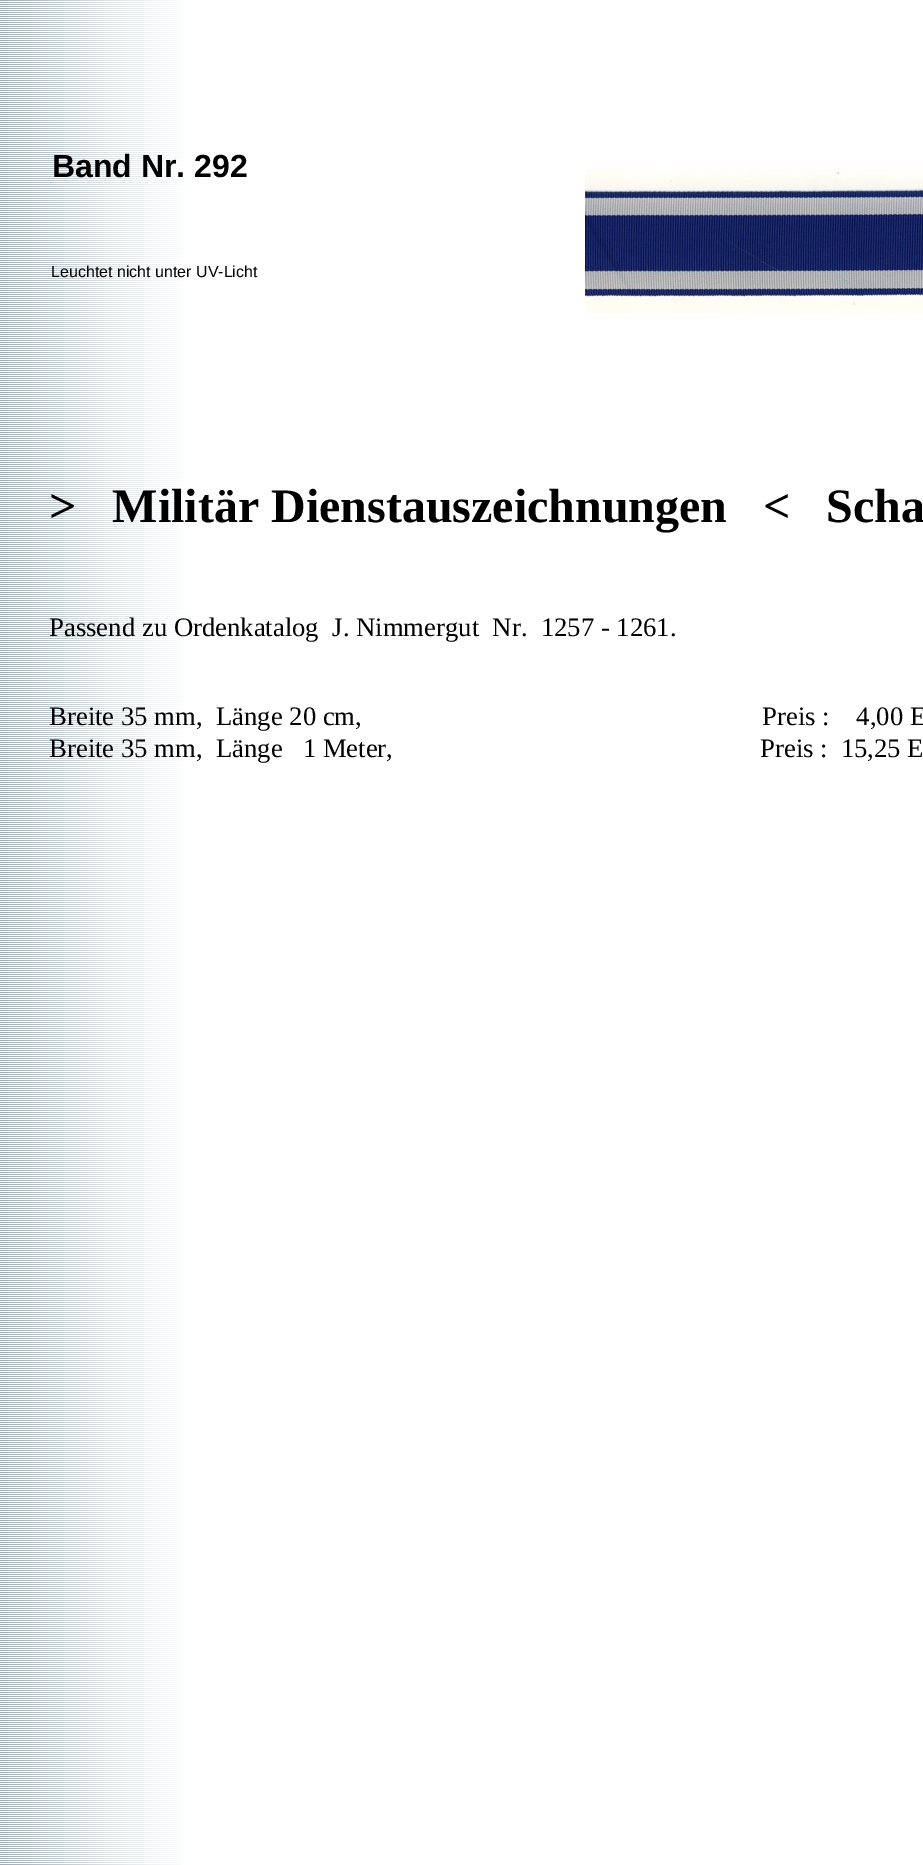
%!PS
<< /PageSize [923 1865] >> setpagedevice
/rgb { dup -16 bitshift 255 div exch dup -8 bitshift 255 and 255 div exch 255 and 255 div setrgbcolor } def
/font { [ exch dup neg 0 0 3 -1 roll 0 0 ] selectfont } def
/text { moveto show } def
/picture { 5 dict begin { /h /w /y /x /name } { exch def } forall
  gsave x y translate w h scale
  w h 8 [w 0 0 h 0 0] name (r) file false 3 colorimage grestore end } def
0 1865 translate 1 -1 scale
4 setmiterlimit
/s1 { /LiberationSans-Bold 32 font 16#000000 rgb } def
/s2 { /LiberationSans-Regular 16 font 16#000000 rgb } def
/s3 { /LiberationSerif-Bold 48 font 16#000000 rgb } def
/s4 { /LiberationSerif-Regular 26.7 font 16#000000 rgb } def
16#FFFFFF rgb
0 0 923 1865 rectfill
(pic1.raw) 0 0 182 1865 picture
s1
(Band Nr. 292) 52 177 text
s2
(Leuchtet nicht unter UV-Licht) 51 277 text
(pic2.raw) 585 169 338 144 picture
s3
(>   Militär Dienstauszeichnungen   <   Scha) 49 522 text
s4
(Passend zu Ordenkatalog  J. Nimmergut  Nr.  1257 - 1261.) 49 636 text
(Breite 35 mm,  Länge 20 cm,                                                            Preis :    4,00 E) 49 725 text
(Breite 35 mm,  Länge   1 Meter,                                                       Preis :  15,25 E) 49 757 text
showpage
